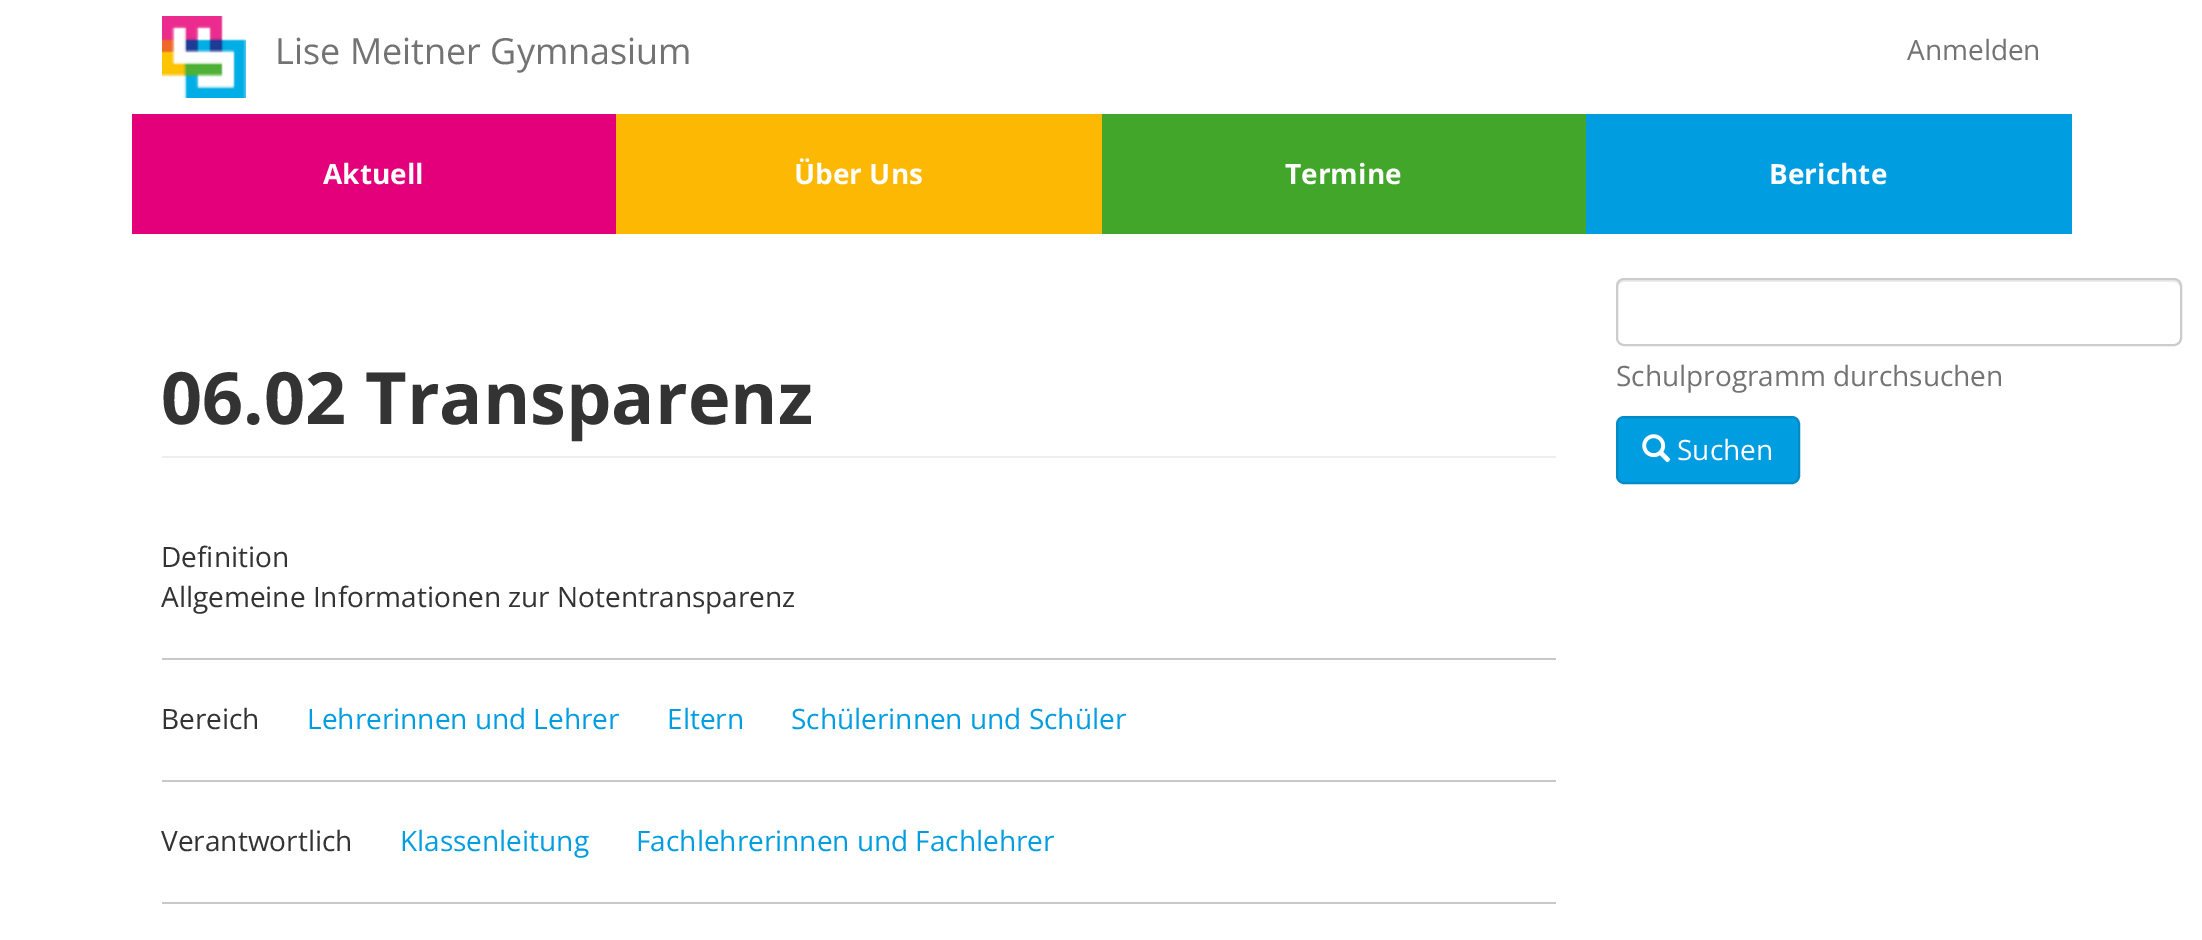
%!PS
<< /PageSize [2202 940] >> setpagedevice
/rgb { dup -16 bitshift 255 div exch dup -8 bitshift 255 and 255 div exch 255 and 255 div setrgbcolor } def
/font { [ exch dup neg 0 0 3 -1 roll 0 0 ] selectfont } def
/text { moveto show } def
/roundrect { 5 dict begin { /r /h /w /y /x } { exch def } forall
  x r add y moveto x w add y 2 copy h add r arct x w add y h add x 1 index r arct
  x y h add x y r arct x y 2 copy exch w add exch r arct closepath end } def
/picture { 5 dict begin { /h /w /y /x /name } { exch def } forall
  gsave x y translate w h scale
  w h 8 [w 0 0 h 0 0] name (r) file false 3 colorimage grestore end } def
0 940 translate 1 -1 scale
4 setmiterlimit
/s1 { /OpenSans-Regular 36 font 16#737373 rgb } def
/s2 { /OpenSans-Regular 28 font 16#737373 rgb } def
/s3 { /OpenSans-Bold 28 font 16#FFFFFF rgb } def
/s4 { /OpenSans-Bold 72 font 16#333333 rgb } def
/s5 { /OpenSans-Regular 28 font 16#333333 rgb } def
/s6 { /OpenSans-Regular 28 font 16#009DE0 rgb } def
/s7 { /OpenSans-Regular 28 font 16#FFFFFF rgb } def
16#FFFFFF rgb
0 0 2202 940 rectfill
(pic1.raw) 162 16 84 82 picture
s1
(Lise Meitner Gymnasium) 275 64 text
s2
(Anmelden) 1907 60 text
16#E4007B rgb
132 114 484 120 rectfill
s3
(Aktuell) 323 184 text
16#FDB803 rgb
616 114 486 120 rectfill
s3
(Über Uns) 794 184 text
16#42A62A rgb
1102 114 484 120 rectfill
s3
(Termine) 1285 184 text
16#009DE0 rgb
1586 114 486 120 rectfill
s3
(Berichte) 1769 184 text
16#EEEEEE rgb
162 456 1394 2 rectfill
s4
(06.02 Transparenz) 161 424 text
16#C8C8C8 rgb
162 658 1394 2 rectfill
s5
(Definition) 161 567 text
(Allgemeine Informationen zur Notentransparenz) 161 607 text
16#C8C8C8 rgb
162 780 1394 2 rectfill
s5
(Bereich) 161 729 text
s6
(Lehrerinnen und Lehrer) 307 729 text
(Eltern) 667 729 text
(Schülerinnen und Schüler) 791 729 text
16#C8C8C8 rgb
162 902 1394 2 rectfill
s5
(Verantwortlich) 161 851 text
s6
(Klassenleitung) 400 851 text
(Fachlehrerinnen und Fachlehrer) 636 851 text
16#ECECEC rgb
1624 282 moveto 2174 282 lineto 2177 282 2180 285 2180 288 curveto 2180 286 lineto 2180 283 2177 280 2174 280 curveto 1624 280 lineto 1621 280 1618 283 1618 286 curveto 1618 288 lineto 1618 285 1621 282 1624 282 curveto closepath fill
16#CCCCCC rgb
2 setlinewidth
1617 279 564 66 7 roundrect stroke
s2
(Schulprogramm durchsuchen) 1616 386 text
16#009DE0 rgb
1617 417 182 66 7 roundrect gsave fill grestore
16#008BC7 rgb
stroke
(pic2.raw) 1642 434 29 29 picture
s7
(Suchen) 1677 460 text
showpage
